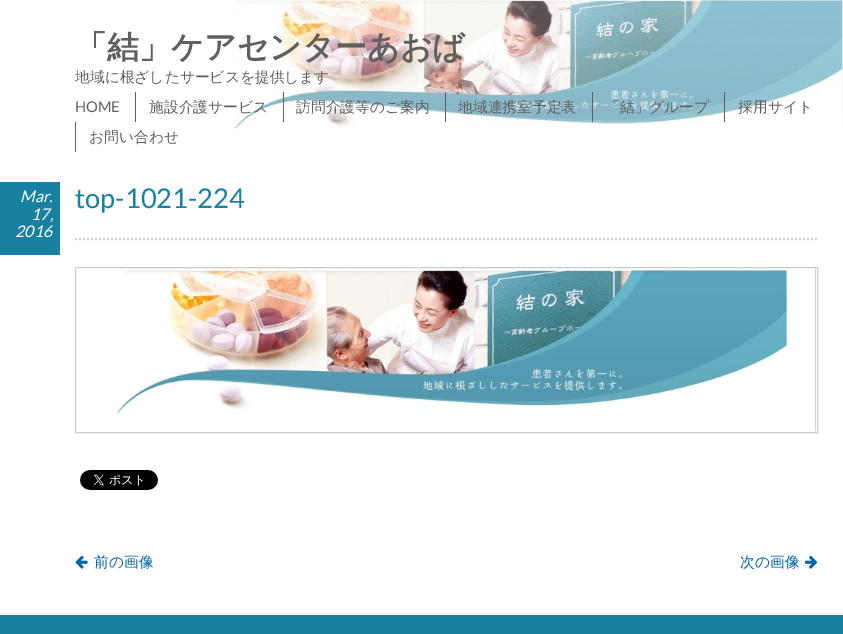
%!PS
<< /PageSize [843 634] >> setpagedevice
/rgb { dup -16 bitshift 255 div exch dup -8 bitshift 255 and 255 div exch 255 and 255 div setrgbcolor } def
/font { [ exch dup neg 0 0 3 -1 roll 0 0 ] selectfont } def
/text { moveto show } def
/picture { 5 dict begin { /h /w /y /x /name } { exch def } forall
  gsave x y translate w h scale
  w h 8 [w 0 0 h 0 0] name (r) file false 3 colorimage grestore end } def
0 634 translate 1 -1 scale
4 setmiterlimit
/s1 { /WenQuanYiZenHei-Bold 32 font 16#606060 rgb } def
/s2 { /WenQuanYiZenHei-Medium 14.75 font 16#606060 rgb } def
/s3 { /Lato-Regular 14.75 font 16#606060 rgb } def
/s4 { /Lato-Italic 16 font 16#FFFFFF rgb } def
/s5 { /Lato-Regular 27.25 font 16#1880A0 rgb } def
/s6 { /WenQuanYiZenHei-Medium 14.75 font 16#0066AA rgb } def
16#FFFFFF rgb
0 0 843 634 rectfill
(pic1.raw) 232 0 611 130 picture
s1
(「結」ケアセンターあおば) 75 58 text
s2
(地域に根ざしたサービスを提供します) 75 82 text
s3
(HOME) 75 112 text
135 92 1 30 rectfill
s2
(施設介護サービス) 149 112 text
283 92 1 30 rectfill
(訪問介護等のご案内) 296 112 text
445 92 1 30 rectfill
(地域連携室予定表) 458 112 text
592 92 1 30 rectfill
(「結」グループ) 605 112 text
724 92 1 30 rectfill
(採用サイト) 738 112 text
75 122 1 30 rectfill
(お問い合わせ) 89 142 text
16#1880A0 rgb
0 182 60 73 rectfill
s4
(Mar.) 20 202 text
(17,) 31 220 text
(2016) 15 237 text
16#CCCCCC rgb
2 setlinewidth
[2 2] 0 setdash
75 239 moveto 818 239 lineto stroke
s5
(top-1021-224) 75 208 text
16#CCCCCC rgb
1 setlinewidth
[] 0 setdash
75.5 267.5 742 165 rectstroke
(pic2.raw) 116 269 700 162 picture
(pic3.raw) 80 470 78 20 picture
(pic4.raw) 75 555 13 14 picture
s6
(前の画像) 94 567 text
(次の画像) 740 567 text
(pic5.raw) 805 555 13 14 picture
16#1880A0 rgb
0 615 843 19 rectfill
showpage
